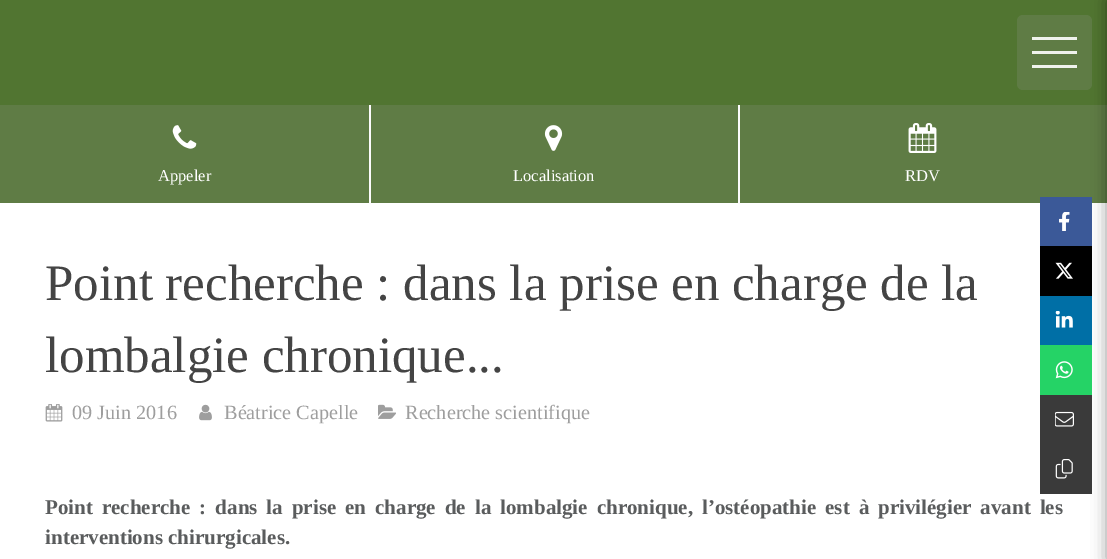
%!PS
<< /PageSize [1107 559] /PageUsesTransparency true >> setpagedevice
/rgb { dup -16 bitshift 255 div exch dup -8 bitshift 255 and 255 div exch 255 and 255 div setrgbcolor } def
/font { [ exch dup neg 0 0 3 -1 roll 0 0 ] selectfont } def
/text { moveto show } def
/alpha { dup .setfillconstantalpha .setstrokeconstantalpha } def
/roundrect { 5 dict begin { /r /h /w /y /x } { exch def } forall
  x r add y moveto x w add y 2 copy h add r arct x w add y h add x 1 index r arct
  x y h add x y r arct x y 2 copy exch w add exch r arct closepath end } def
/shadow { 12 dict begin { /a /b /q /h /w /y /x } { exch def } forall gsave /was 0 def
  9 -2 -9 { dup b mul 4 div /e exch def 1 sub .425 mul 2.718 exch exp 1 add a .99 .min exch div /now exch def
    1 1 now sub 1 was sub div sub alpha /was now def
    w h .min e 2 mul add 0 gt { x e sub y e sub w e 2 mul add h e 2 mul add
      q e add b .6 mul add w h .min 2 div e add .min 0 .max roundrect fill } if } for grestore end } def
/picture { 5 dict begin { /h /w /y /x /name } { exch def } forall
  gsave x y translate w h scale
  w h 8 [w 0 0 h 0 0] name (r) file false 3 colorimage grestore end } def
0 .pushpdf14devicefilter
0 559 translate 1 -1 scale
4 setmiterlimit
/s1 { /LiberationSerif-Regular 16.5 font 16#FFFFFF rgb } def
/s2 { /LiberationSerif-Regular 51 font 16#444444 rgb } def
/s3 { /LiberationSerif-Regular 20.25 font 16#9E9E9E rgb } def
/s4 { /LiberationSerif-Bold 21 font 16#5A5C5D rgb } def
16#FFFFFF rgb
0 0 1107 559 rectfill
16#517531 rgb
0 0 1107 105 rectfill
16#5F7C45 rgb
1017 15 75 75 6 roundrect fill
16#EFF2EC rgb
1032 37 45 3 rectfill
1032 51 45 3 rectfill
1032 65 45 3 rectfill
16#5F7C45 rgb
0 105 1107 98 rectfill
(pic1.raw) 172 125 25 24 picture
s1
(Appeler) 158 181 text
16#FBFBFB rgb
369 105 2 99 rectfill
(pic2.raw) 544 125 19 26 picture
s1
(Localisation) 513 181 text
16#FBFBFB rgb
738 105 2 99 rectfill
(pic3.raw) 908 123 29 30 picture
s1
(RDV) 905 181 text
s2
(Point recherche : dans la prise en charge de la) 45 300 text
(lombalgie chronique...) 45 372 text
(pic4.raw) 45 404 18 18 picture
s3
(09 Juin 2016) 72 419 text
(pic5.raw) 199 404 13 17 picture
(Béatrice Capelle) 224 419 text
(pic6.raw) 378 404 18 15 picture
(Recherche scientifique) 405 419 text
/LiberationSerif-Bold 21 font
16#5A5C5D rgb
45 514 moveto 3.75 0 32 (Point recherche : dans la prise en charge de la lombalgie chronique, l’ostéopathie est à privilégier avant les) widthshow
(interventions chirurgicales.) 45 544 text
16#000000 rgb
1107 0 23 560 0 7.5 0.4 shadow
16#3B5998 rgb
1040 197 52 49 rectfill
(pic7.raw) 1059 212 11 19 picture
16#000000 rgb
1040 246 52 50 rectfill
(pic8.raw) 1055 262 18 17 picture
16#006FA6 rgb
1040 296 52 49 rectfill
(pic9.raw) 1055 311 18 17 picture
16#25D366 rgb
1040 345 52 50 rectfill
(pic10.raw) 1055 361 18 18 picture
16#3A3A3A rgb
1040 395 52 99 rectfill
(pic11.raw) 1055 411 19 16 picture
(pic12.raw) 1055 459 18 20 picture
.poppdf14devicefilter showpage
